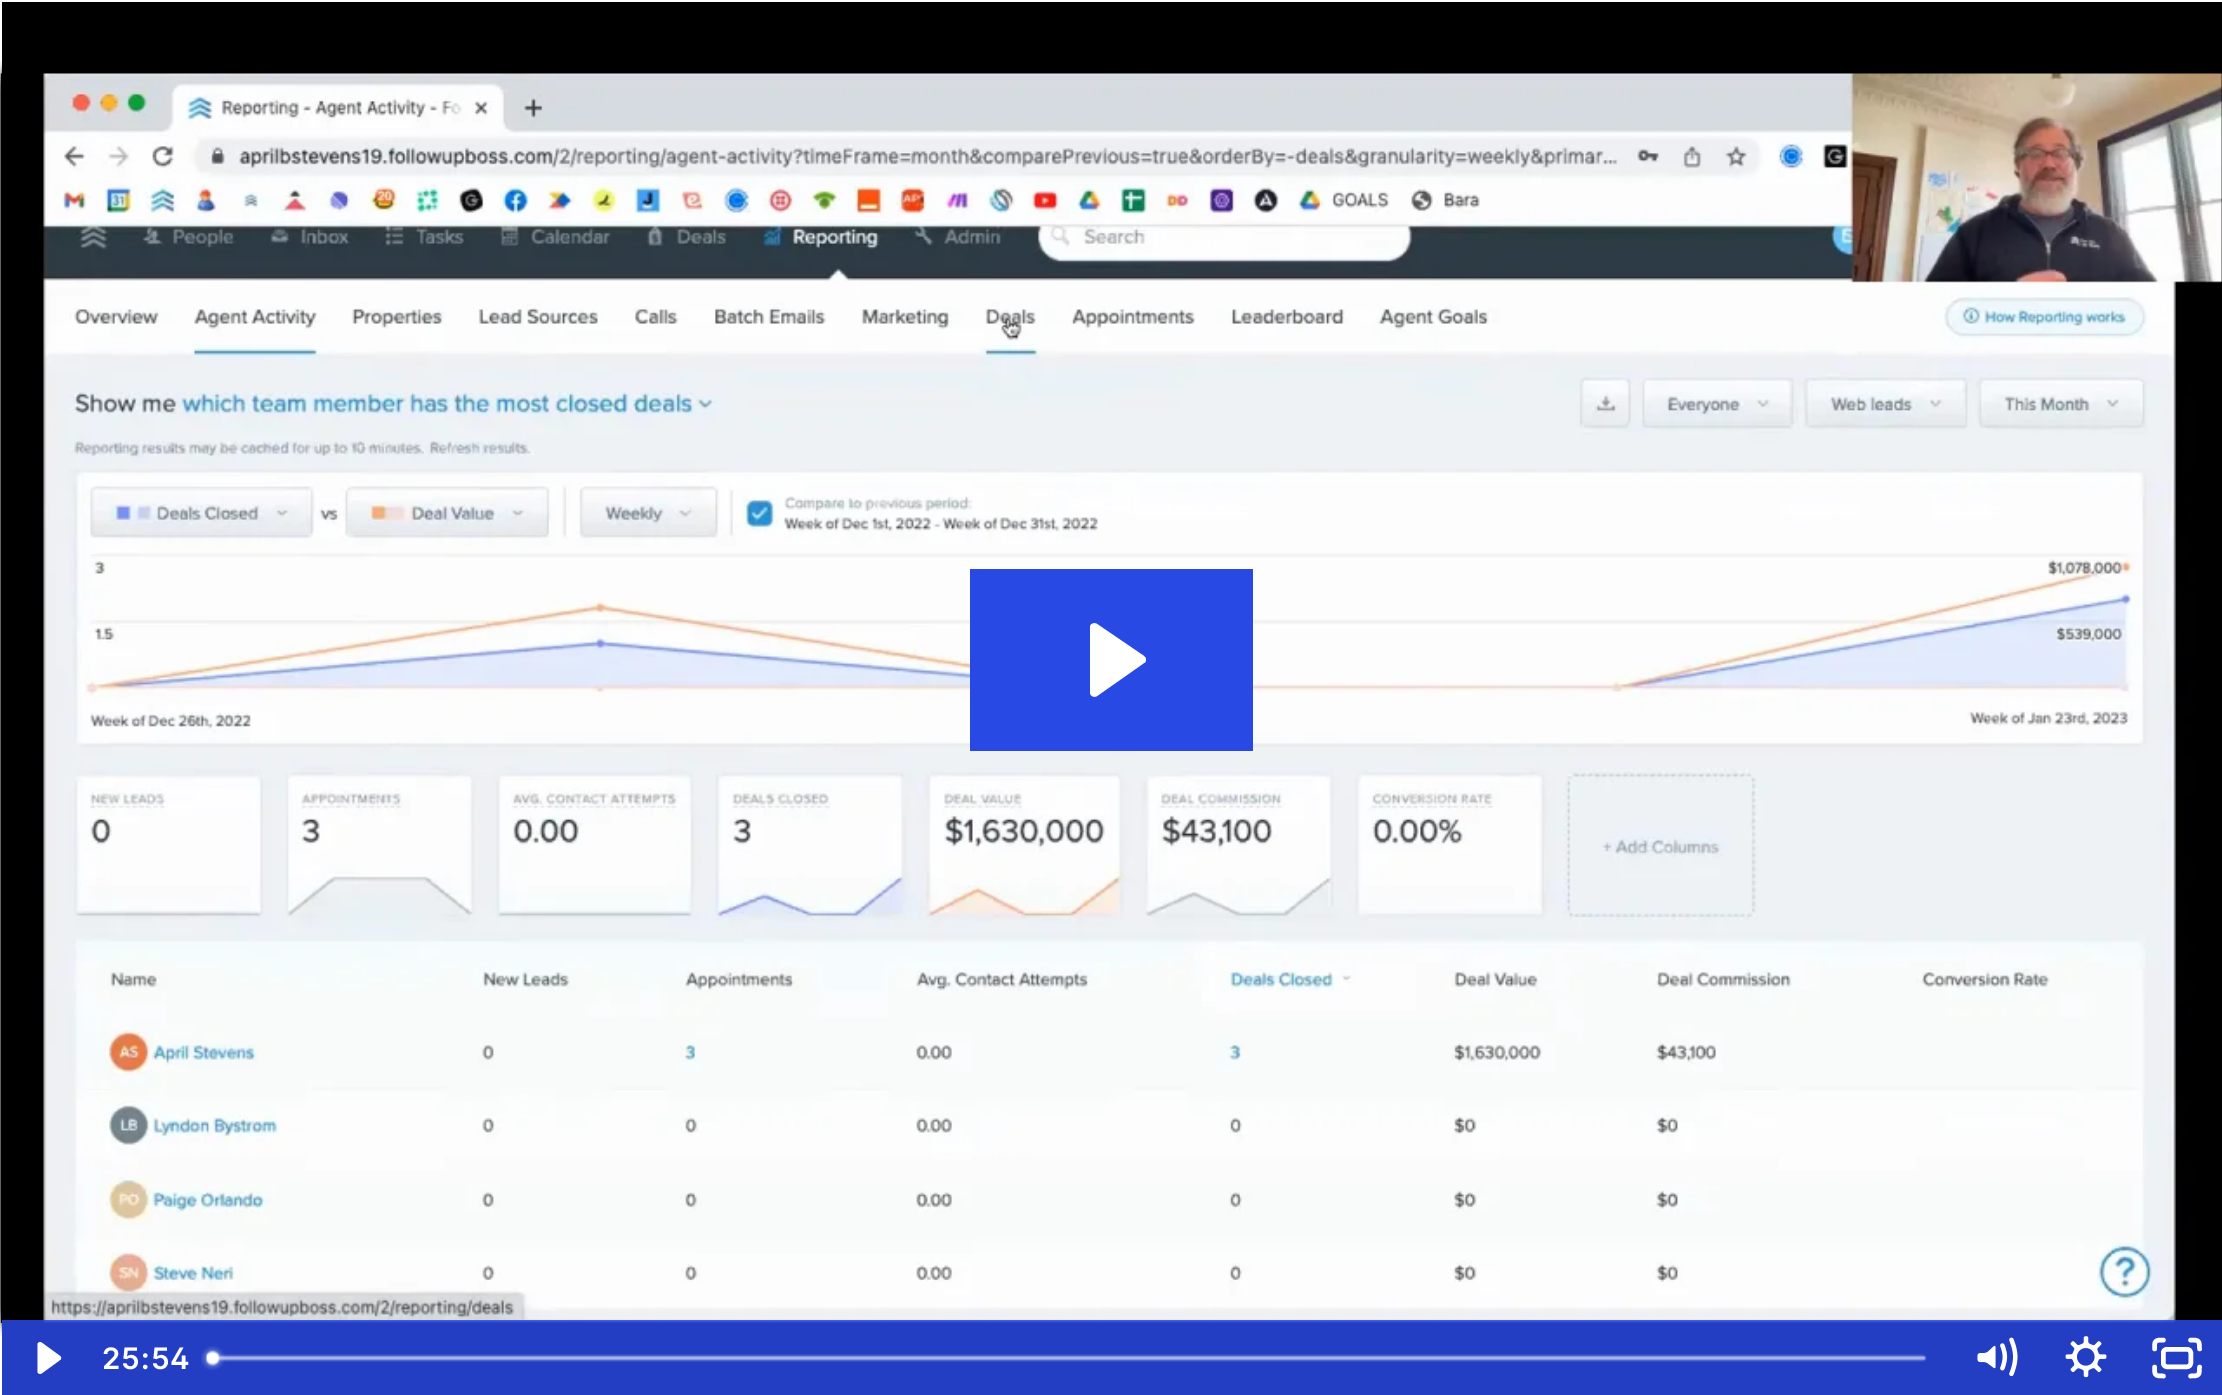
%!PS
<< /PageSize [2222 1395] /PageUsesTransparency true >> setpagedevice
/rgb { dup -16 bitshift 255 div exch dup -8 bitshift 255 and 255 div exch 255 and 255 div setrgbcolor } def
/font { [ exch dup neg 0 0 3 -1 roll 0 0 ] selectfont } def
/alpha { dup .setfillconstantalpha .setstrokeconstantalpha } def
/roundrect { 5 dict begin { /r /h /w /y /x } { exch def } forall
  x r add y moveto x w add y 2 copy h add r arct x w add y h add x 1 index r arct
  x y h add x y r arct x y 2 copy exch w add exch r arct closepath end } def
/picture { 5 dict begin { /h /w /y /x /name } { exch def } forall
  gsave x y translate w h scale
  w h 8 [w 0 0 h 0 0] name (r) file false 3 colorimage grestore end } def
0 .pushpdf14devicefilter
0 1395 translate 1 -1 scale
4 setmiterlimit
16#FFFFFF rgb
0 0 2222 1395 rectfill
(pic1.raw) 0 61 2 1275 picture
16#000000 rgb
2 2 2220 1393 rectfill
(pic3.raw) 0 61 2 1275 picture
(pic2.raw) 0 73 2222 1250 picture
16#2949E5 rgb
970 569 283 182 rectfill
16#FFFFFF rgb
1097 624 moveto 1094 622 1090 624 1090 627 curveto 1090 692 lineto 1090 696 1094 698 1097 696 curveto 1144 663 lineto 1145 663 1146 661 1146 660 curveto 1146 658 1145 657 1144 656 curveto closepath eofill
0.85 alpha
16#2949E5 rgb
2 1320 2220 75 rectfill
1 alpha
16#FFFFFF rgb
60 1356 moveto 61.5 1357 61.5 1359 60 1360 curveto 41.5 1373.5 lineto 40 1374.5 37.5 1373.5 37.5 1371.5 curveto 37.5 1344.5 lineto 37.5 1342.5 40 1341.5 41.5 1342.5 curveto closepath fill
/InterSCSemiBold-SemiBold 29.5 font
102 1369 moveto 1 0 (25:54) ashow
(pic4.raw) 201 1346 1726 24 picture
(pic5.raw) 1977 1337 41 40 picture
(pic6.raw) 2065 1336 42 42 picture
4.5 setlinewidth
2163.25 1349.25 27.5 17.5 3.75 roundrect stroke
1 setlinecap
1 setlinejoin
2154.5 1349 moveto 2154.5 1340.5 2155 1340 2163.5 1340 curveto 2199.5 1349 moveto 2199.5 1340.5 2199 1340 2190.5 1340 curveto 2199.5 1367 moveto 2199.5 1375.5 2199 1376 2190.5 1376 curveto 2154.5 1367 moveto 2154.5 1375.5 2155 1376 2163.5 1376 curveto stroke
.poppdf14devicefilter showpage
